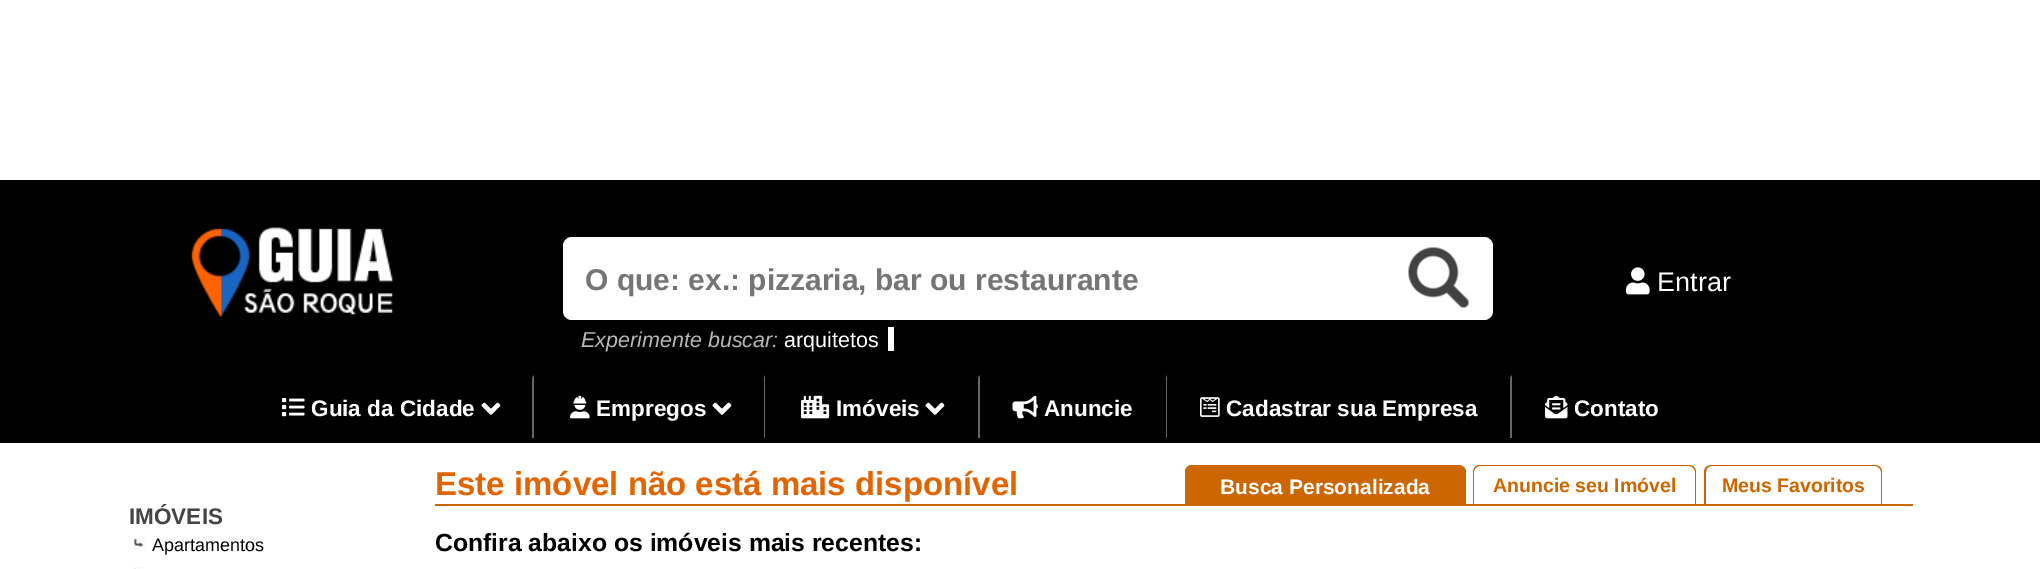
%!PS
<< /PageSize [2040 569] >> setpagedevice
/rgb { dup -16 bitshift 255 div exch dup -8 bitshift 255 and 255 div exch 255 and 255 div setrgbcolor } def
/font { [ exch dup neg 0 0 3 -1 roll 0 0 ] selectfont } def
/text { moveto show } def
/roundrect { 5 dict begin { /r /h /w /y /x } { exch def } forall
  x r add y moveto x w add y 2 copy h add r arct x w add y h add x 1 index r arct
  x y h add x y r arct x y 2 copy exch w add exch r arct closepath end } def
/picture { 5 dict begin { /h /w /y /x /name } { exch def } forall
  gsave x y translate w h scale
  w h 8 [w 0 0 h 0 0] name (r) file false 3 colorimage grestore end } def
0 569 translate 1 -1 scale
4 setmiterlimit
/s1 { /LiberationSans-Bold 30 font 16#757575 rgb } def
/s2 { /LiberationSans-Italic 21.5 font 16#B8B8B8 rgb } def
/s3 { /LiberationSans-Regular 21.5 font 16#FFFFFF rgb } def
/s4 { /LiberationSans-Regular 27 font 16#FFFFFF rgb } def
/s5 { /LiberationSans-Bold 22.5 font 16#FFFFFF rgb } def
/s6 { /LiberationSans-Bold 22.5 font 16#444444 rgb } def
/s7 { /LiberationSans-Regular 18 font 16#000000 rgb } def
/s8 { /LiberationSans-Bold 33 font 16#E26400 rgb } def
/s9 { /LiberationSans-Bold 21 font 16#FFFFFF rgb } def
/s10 { /LiberationSans-Bold 19.5 font 16#CC6600 rgb } def
/s11 { /LiberationSans-Bold 24.75 font 16#000000 rgb } def
16#FFFFFF rgb
0 0 2040 569 rectfill
16#000000 rgb
0 180 2040 263 rectfill
(pic1.raw) 191 227 203 91 picture
16#FFFFFF rgb
563 237 930 83 9 roundrect fill
s1
(O que: ex.: pizzaria, bar ou restaurante) 585 290 text
(pic2.raw) 1408 247 61 61 picture
s2
(Experimente buscar:) 581 347 text
s3
(arquitetos) 784 347 text
888 327 6 24 rectfill
(pic3.raw) 1626 267 24 28 picture
s4
(Entrar) 1657 291 text
16#666666 rgb
534 375 moveto 534 438 lineto 532 438 lineto 532 378 lineto closepath fill
(pic4.raw) 282 397 23 20 picture
s5
(Guia da Cidade) 311 416 text
(pic5.raw) 481 402 20 13 picture
16#666666 rgb
765 375 moveto 765 438 lineto 764 438 lineto 764 378 lineto closepath fill
(pic6.raw) 570 395 20 24 picture
s5
(Empregos) 596 416 text
(pic5.raw) 712 402 20 13 picture
16#666666 rgb
980 375 moveto 980 438 lineto 978 438 lineto 978 378 lineto closepath fill
(pic7.raw) 801 395 29 24 picture
s5
(Imóveis) 836 416 text
(pic5.raw) 925 402 20 13 picture
16#666666 rgb
1167 375 moveto 1167 438 lineto 1166 438 lineto 1166 378 lineto closepath fill
(pic8.raw) 1012 395 26 24 picture
s5
(Anuncie) 1044 416 text
16#666666 rgb
1512 375 moveto 1512 438 lineto 1510 438 lineto 1510 378 lineto closepath fill
(pic9.raw) 1200 397 20 20 picture
s5
(Cadastrar sua Empresa) 1226 416 text
(pic10.raw) 1545 395 23 24 picture
(Contato) 1574 416 text
s6
(IMÓVEIS) 129 524 text
(pic11.raw) 132 537 14 13 picture
s7
(Apartamentos) 152 551 text
(pic12.raw) 132 567 12 2 picture
16#CC6600 rgb
435 504 1478 2 rectfill
s8
(Este imóvel não está mais disponível) 435 495 text
16#CC6600 rgb
1193 465 moveto 1458 465 lineto 1462.5 465 1466 468.5 1466 473 curveto 1466 506 lineto 1185 506 lineto 1185 473 lineto 1185 468.5 1188.5 465 1193 465 curveto closepath fill
1192 465 moveto 1458 465 lineto 1462 465 1466 468 1466 472 curveto 1466 506 lineto 1185 506 lineto 1185 472 lineto 1185 468 1188 465 1192 465 curveto closepath 1192 466 moveto 1458 466 lineto 1461 466 1464 469 1464 472 curveto 1464 506 lineto 1186 506 lineto 1186 472 lineto 1186 469 1189 466 1192 466 curveto closepath eofill
s9
(Busca Personalizada) 1220 494 text
16#CC6600 rgb
1480 465 moveto 1689 465 lineto 1693 465 1696 468 1696 472 curveto 1696 506 lineto 1473 506 lineto 1473 472 lineto 1473 468 1476 465 1480 465 curveto closepath 1480 466 moveto 1689 466 lineto 1692 466 1695 469 1695 472 curveto 1695 506 lineto 1474 506 lineto 1474 472 lineto 1474 469 1477 466 1480 466 curveto closepath eofill
s10
(Anuncie seu Imóvel) 1493 492 text
1712 465 moveto 1875 465 lineto 1879 465 1882 468 1882 472 curveto 1882 506 lineto 1704 506 lineto 1704 472 lineto 1704 468 1707 465 1712 465 curveto closepath 1712 466 moveto 1875 466 lineto 1878 466 1881 469 1881 472 curveto 1881 506 lineto 1706 506 lineto 1706 472 lineto 1706 469 1708 466 1712 466 curveto closepath eofill
(Meus Favoritos) 1722 492 text
s11
(Confira abaixo os imóveis mais recentes:) 435 551 text
showpage
